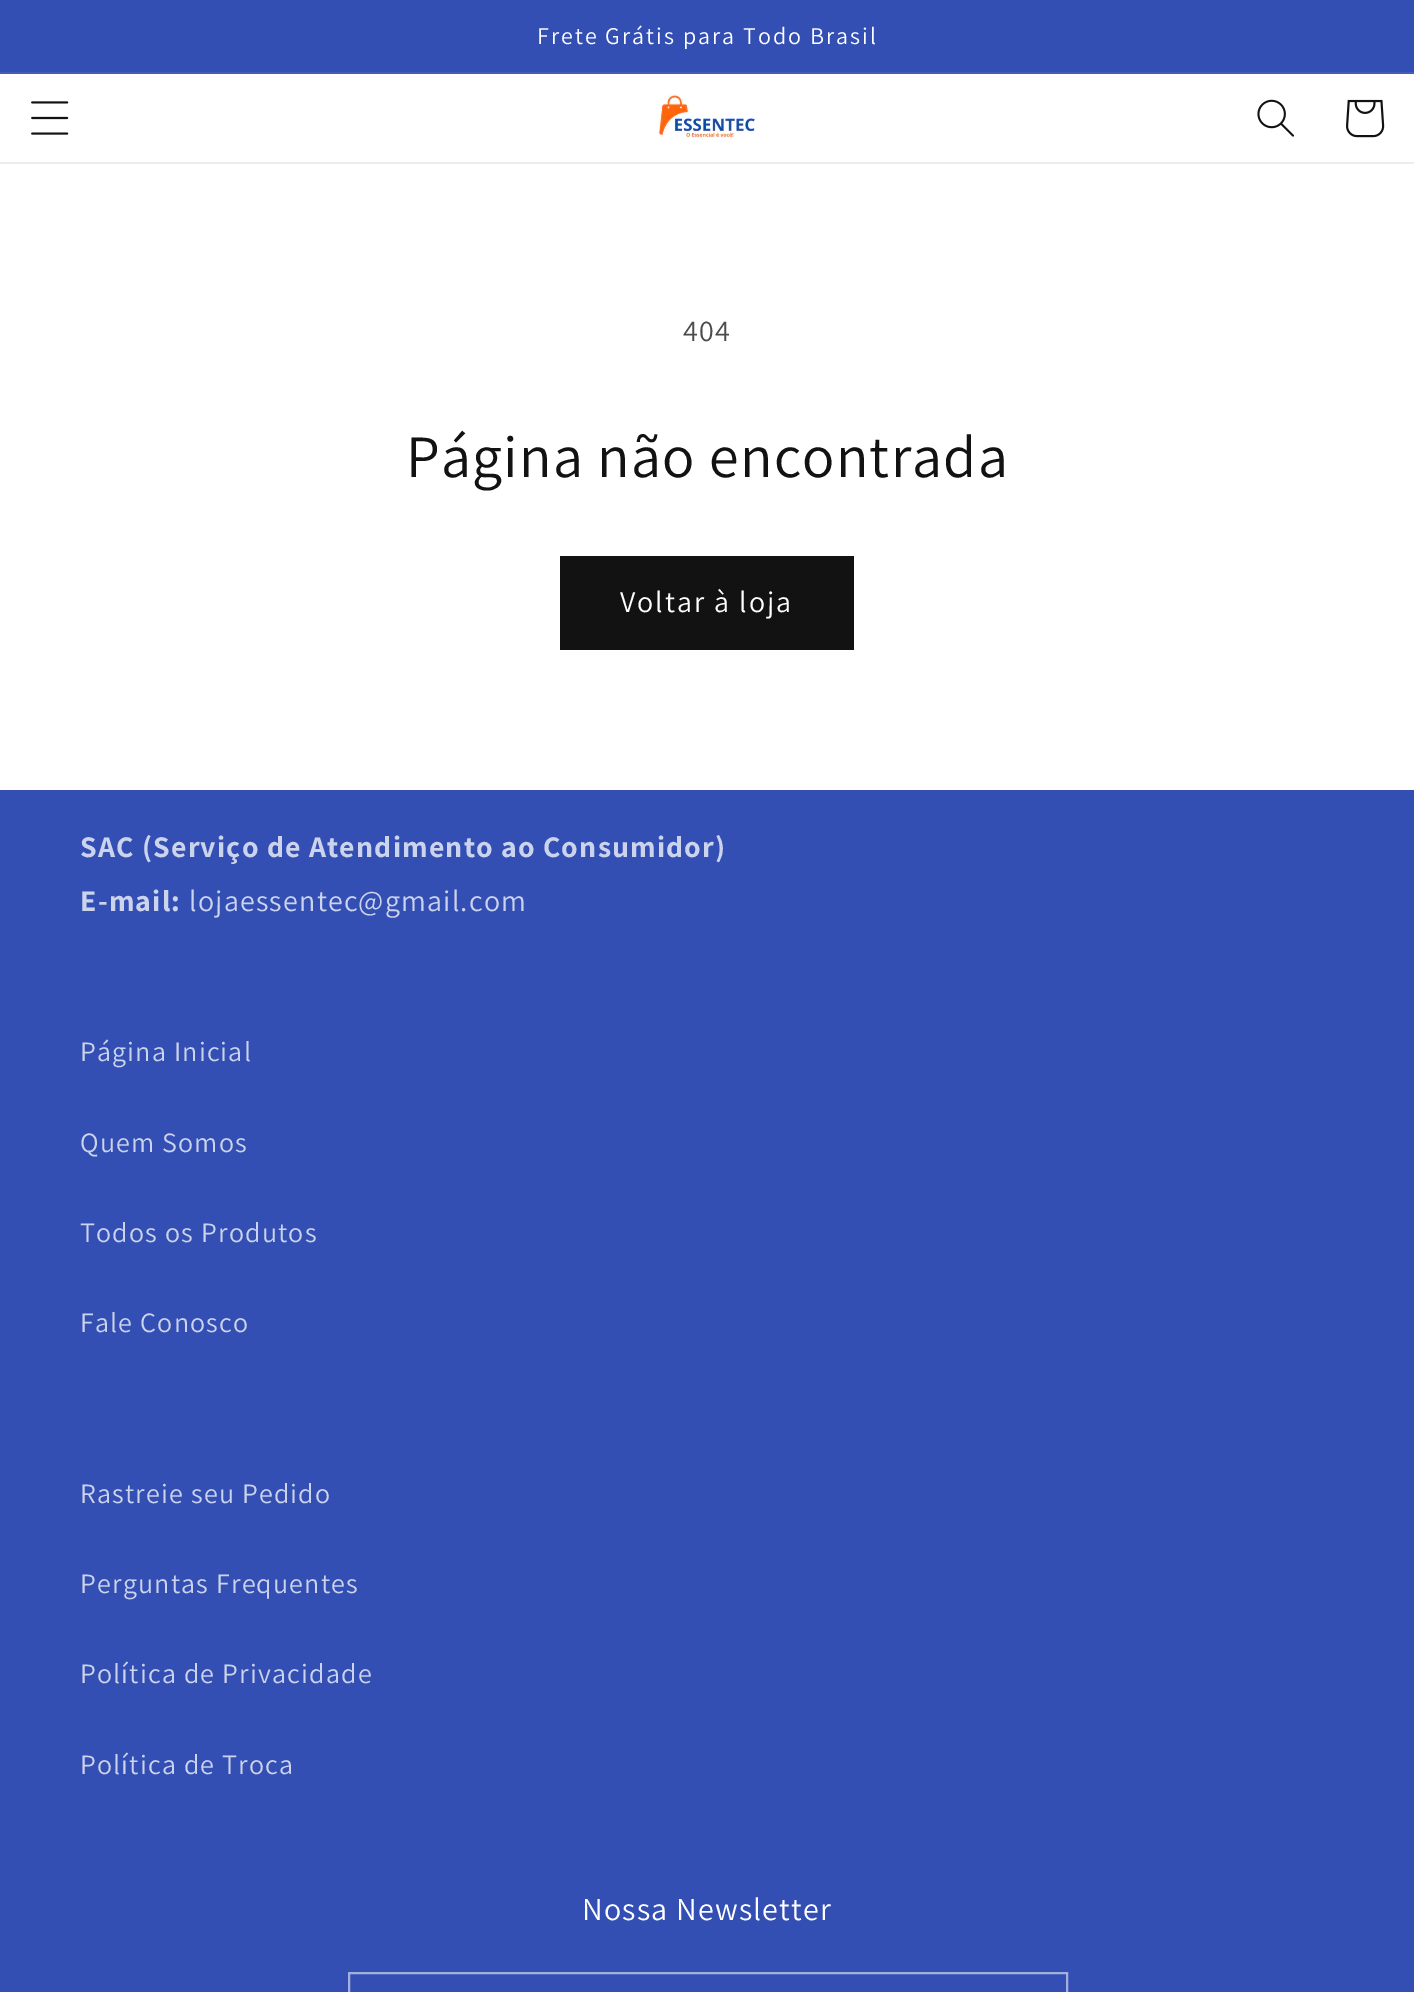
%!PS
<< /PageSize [1414 1992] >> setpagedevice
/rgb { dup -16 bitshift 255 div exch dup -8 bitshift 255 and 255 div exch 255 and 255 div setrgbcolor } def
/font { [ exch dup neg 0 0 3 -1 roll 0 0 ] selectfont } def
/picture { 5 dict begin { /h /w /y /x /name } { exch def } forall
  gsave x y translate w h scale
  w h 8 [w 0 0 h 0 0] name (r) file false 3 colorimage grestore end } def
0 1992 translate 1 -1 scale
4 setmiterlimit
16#FFFFFF rgb
0 0 1414 1992 rectfill
16#334FB4 rgb
0 0 1414 72 rectfill
16#435DBA rgb
0 72 1414 2 rectfill
/Assistant-Regular 24 font
16#FFFFFF rgb
537 44 moveto 2 0 (Frete Grátis para Todo Brasil) ashow
16#ECECEC rgb
0 162 1414 2 rectfill
(pic1.raw) 31 101 38 34 picture
(pic2.raw) 658 94 100 48 picture
(pic3.raw) 1257 99 37 38 picture
(pic4.raw) 1346 99 39 39 picture
/Assistant-Regular 30 font
16#4D4D4D rgb
683 341 moveto 1.2 0 (404) ashow
/Assistant-Regular 60 font
16#121212 rgb
406 477 moveto 1.2 0 (Página não encontrada) ashow
560 556 294 94 rectfill
/Assistant-Regular 30 font
16#FFFFFF rgb
620 612 moveto 2 0 (Voltar à loja) ashow
16#334FB4 rgb
0 790 1414 1202 rectfill
/Assistant-Bold 30 font
16#CCD3EC rgb
80 857 moveto 1.2 0 (SAC \(Serviço de Atendimento ao Consumidor\)) ashow
80 911 moveto 1.2 0 (E-mail:) ashow
/Assistant-Regular 30 font
189 911 moveto 1.2 0 (lojaessentec@gmail.com) ashow
/Assistant-Regular 28 font
80 1061 moveto 1.2 0 (Página Inicial) ashow
80 1152 moveto 1.2 0 (Quem Somos) ashow
80 1242 moveto 1.2 0 (Todos os Produtos) ashow
80 1332 moveto 1.2 0 (Fale Conosco) ashow
80 1503 moveto 1.2 0 (Rastreie seu Pedido) ashow
80 1593 moveto 1.2 0 (Perguntas Frequentes) ashow
80 1683 moveto 1.2 0 (Política de Privacidade) ashow
80 1774 moveto 1.2 0 (Política de Troca) ashow
/Assistant-Regular 32 font
16#FFFFFF rgb
582 1920 moveto 1.2 0 (Nossa Newsletter) ashow
16#A3B0DD rgb
2 setlinewidth
349 1973 718 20 rectstroke
showpage
